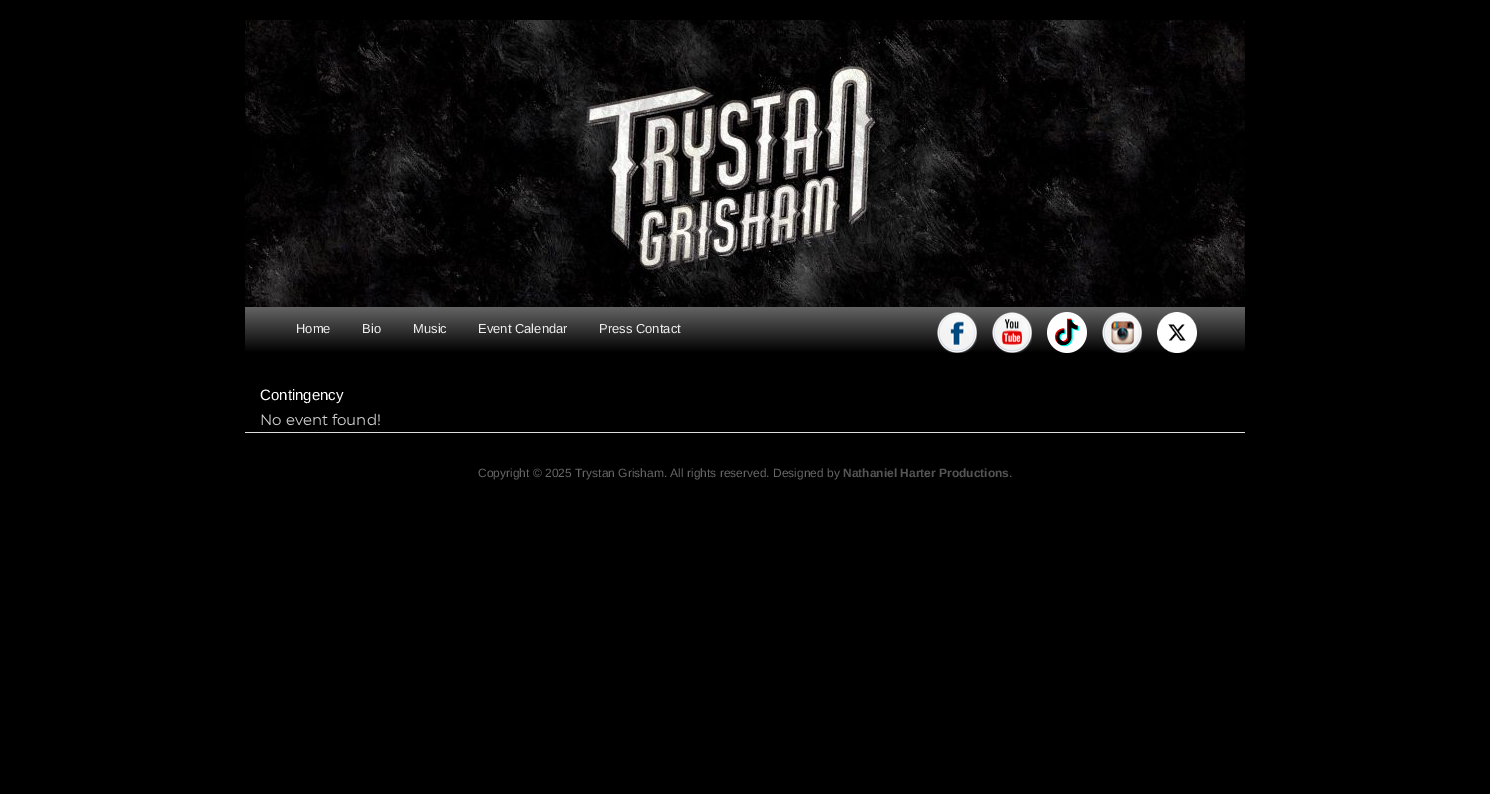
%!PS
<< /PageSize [1490 794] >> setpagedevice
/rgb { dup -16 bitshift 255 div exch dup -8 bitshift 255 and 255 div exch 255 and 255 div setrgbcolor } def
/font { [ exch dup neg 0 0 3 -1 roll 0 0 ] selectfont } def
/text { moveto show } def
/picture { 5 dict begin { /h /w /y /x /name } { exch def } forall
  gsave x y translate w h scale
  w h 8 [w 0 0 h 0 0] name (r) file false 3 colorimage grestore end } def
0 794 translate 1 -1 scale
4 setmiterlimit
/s1 { /LiberationSans-Regular 13 font 16#EEEEEE rgb } def
/s2 { /LiberationSans-Regular 15 font 16#FFFFFF rgb } def
/s3 { /Montserrat-Regular 15 font 16#D2D2D2 rgb } def
/s4 { /LiberationSans-Regular 12 font 16#666666 rgb } def
/s5 { /LiberationSans-Bold 12 font 16#555555 rgb } def
16#000000 rgb
0 0 1490 794 rectfill
(pic1.raw) 245 20 1000 287 picture
gsave 245 307 moveto 1245 307 lineto 1245 352 lineto 245 352 lineto closepath clip newpath
<< /ShadingType 2 /ColorSpace /DeviceRGB /Coords [745 307 745 353] /Extend [true true] /Function << /FunctionType 2 /Domain [0 1] /C0 [0.392 0.392 0.392] /C1 [0 0 0] /N 1 >> >> shfill grestore
s1
(Home) 296 333 text
(Bio) 362 333 text
(Music) 413 333 text
(Event Calendar) 478 333 text
(Press Contact) 599 333 text
(pic2.raw) 937 312 40 41 picture
(pic3.raw) 992 312 40 41 picture
(pic4.raw) 1047 312 40 41 picture
(pic5.raw) 1102 312 40 41 picture
(pic6.raw) 1157 312 40 41 picture
s2
(Contingency) 260 400 text
s3
(No event found!) 260 425 text
16#DDDDDD rgb
245 432 1000 1 rectfill
s4
(Copyright © 2025 Trystan Grisham. All rights reserved. Designed by) 478 477 text
s5
(Nathaniel Harter Productions) 843 477 text
s4
(.) 1009 477 text
showpage
